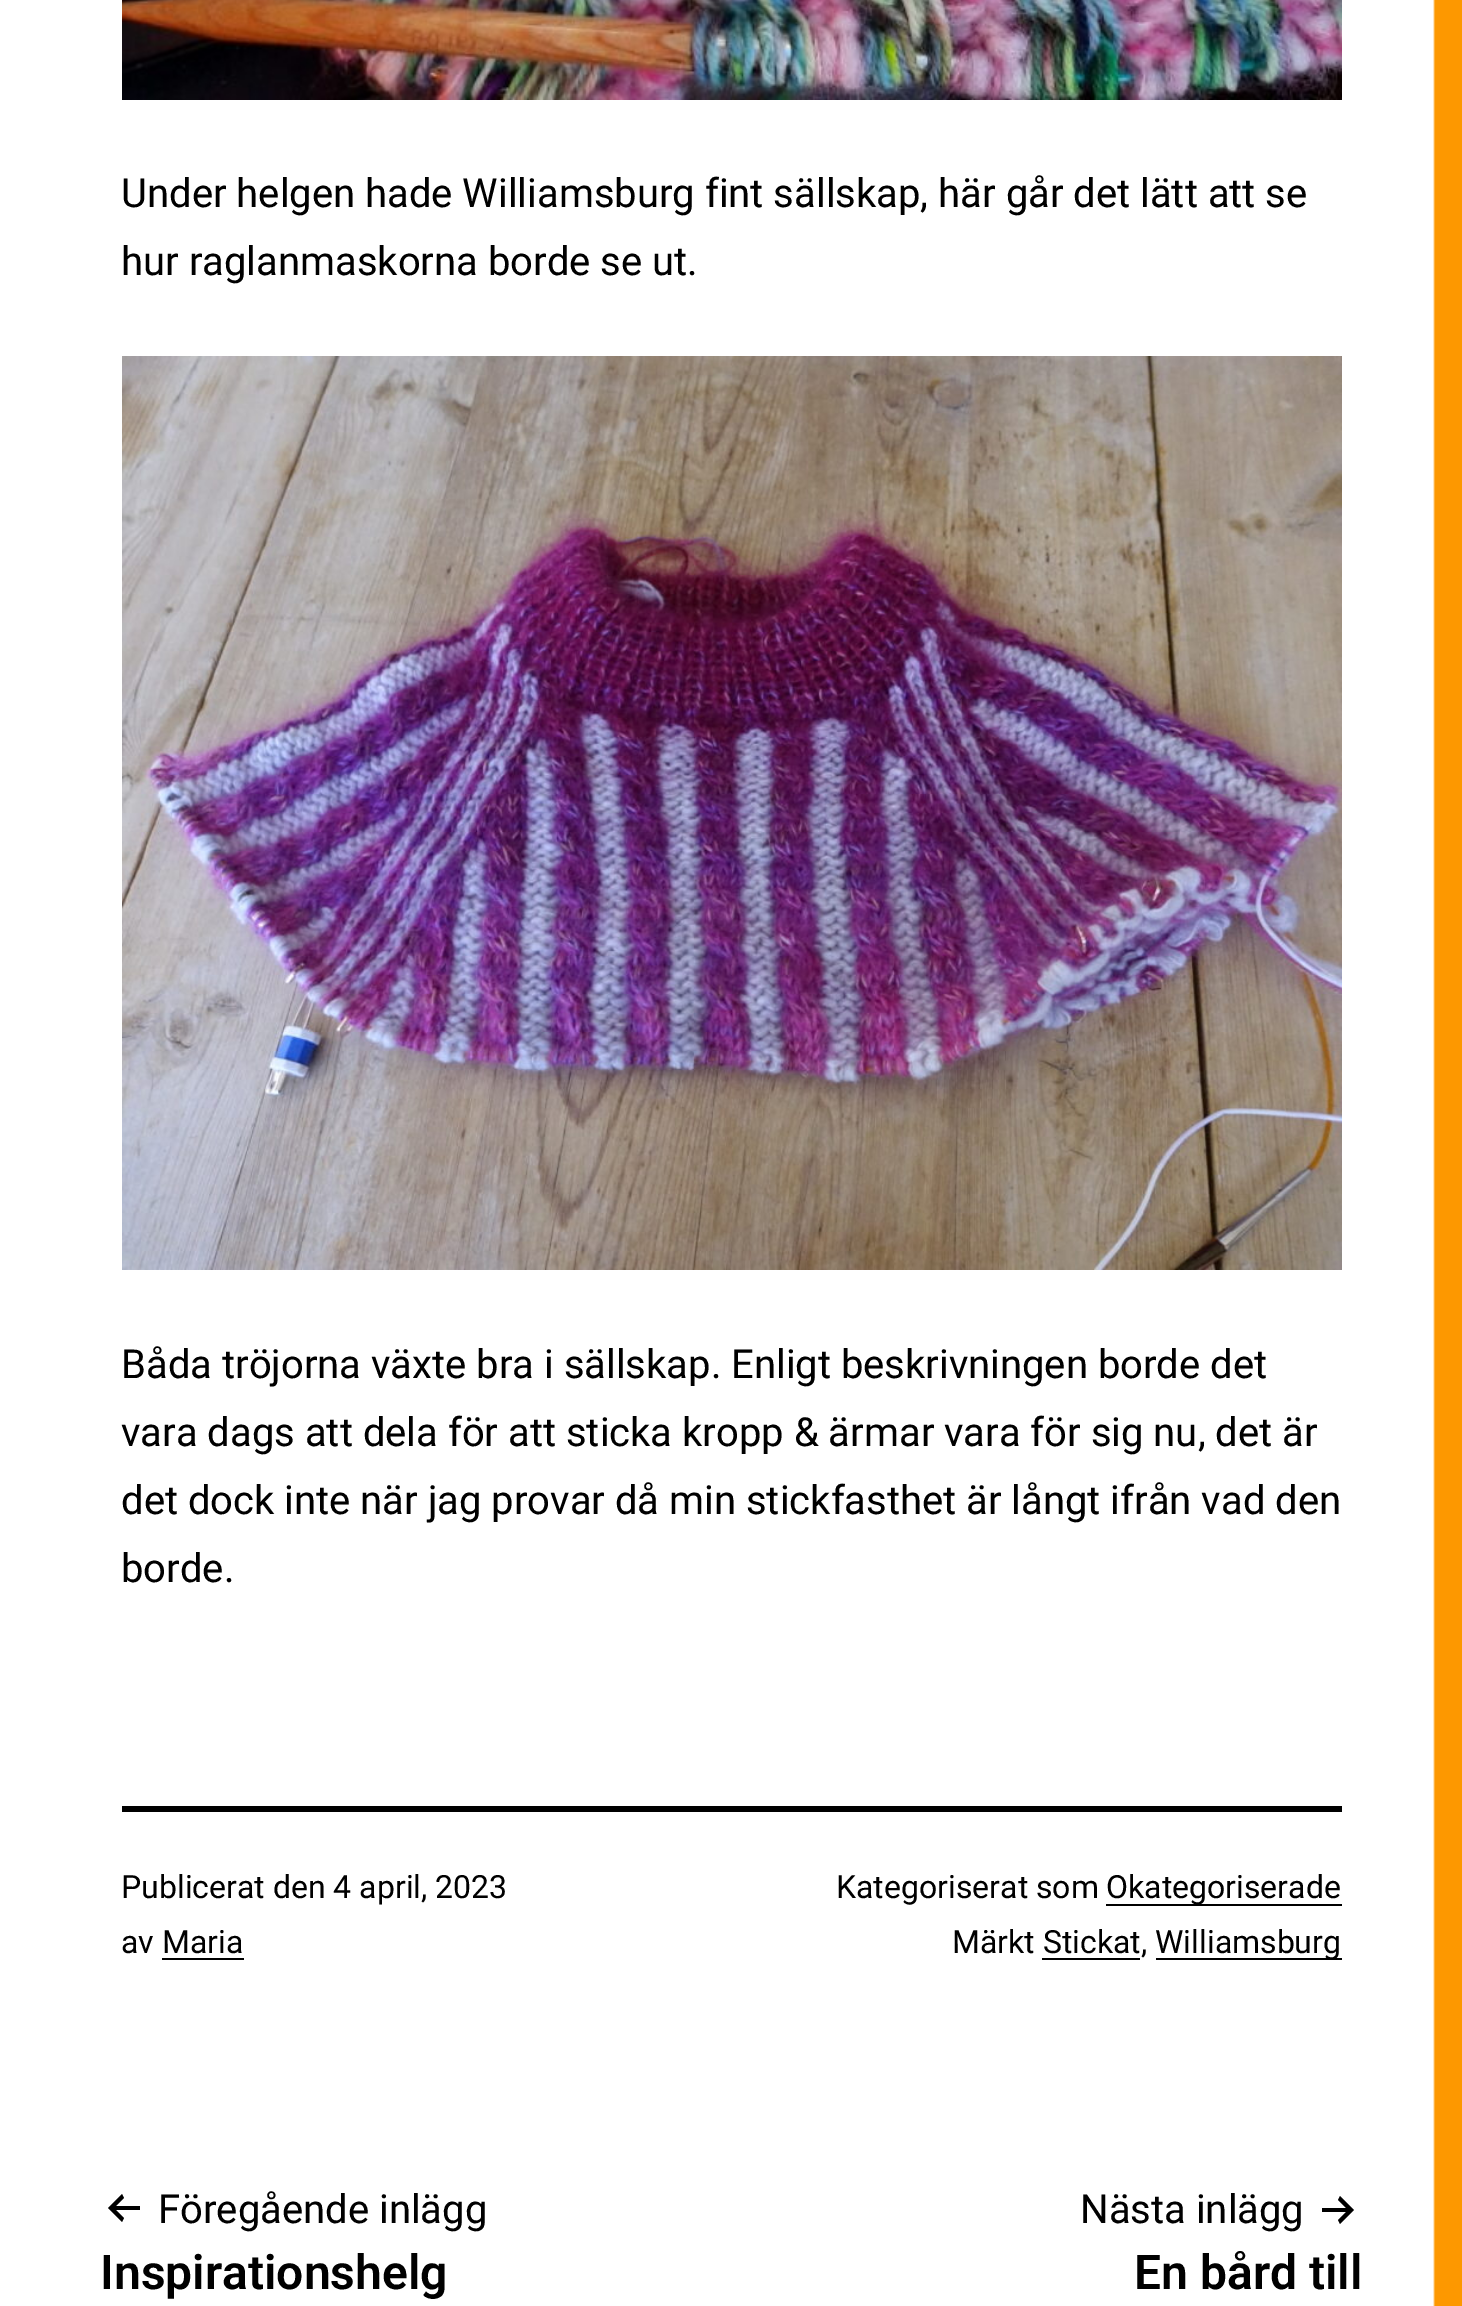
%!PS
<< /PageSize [1462 2306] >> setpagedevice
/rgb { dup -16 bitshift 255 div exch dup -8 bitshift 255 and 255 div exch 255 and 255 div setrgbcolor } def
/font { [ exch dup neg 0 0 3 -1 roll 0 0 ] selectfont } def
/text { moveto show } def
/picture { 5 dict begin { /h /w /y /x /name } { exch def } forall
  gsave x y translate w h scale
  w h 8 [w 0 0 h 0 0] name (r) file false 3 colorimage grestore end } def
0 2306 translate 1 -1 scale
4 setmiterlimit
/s1 { /Roboto-Regular 40 font 16#000000 rgb } def
/s2 { /Roboto-Regular 32 font 16#000000 rgb } def
/s3 { /Roboto-SemiBold 48 font 16#000000 rgb } def
16#FFFFFF rgb
0 0 1462 2306 rectfill
(pic1.raw) 1433 0 29 2306 picture
(pic2.raw) 122 0 1220 100 picture
s1
(Under helgen hade Williamsburg fint sällskap, här går det lätt att se) 121 207 text
(hur raglanmaskorna borde se ut.) 121 275 text
(pic3.raw) 122 356 1220 914 picture
(Båda tröjorna växte bra i sällskap. Enligt beskrivningen borde det) 121 1378 text
(vara dags att dela för att sticka kropp & ärmar vara för sig nu, det är) 121 1446 text
(det dock inte när jag provar då min stickfasthet är långt ifrån vad den) 121 1514 text
(borde.) 121 1582 text
122 1806 1220 6 rectfill
s2
(Publicerat den 4 april, 2023) 121 1898 text
(av Maria) 121 1953 text
162 1958 82 2 rectfill
(Kategoriserat som) 836 1898 text
1106 1904 236 2 rectfill
(Okategoriserade) 1106 1898 text
(Märkt Stickat,) 952 1953 text
1156 1958 186 2 rectfill
(Williamsburg) 1155 1953 text
1042 1958 98 2 rectfill
140 2210 moveto 140 2206 lineto 116 2206 lineto 124 2198 lineto 122 2194 lineto 108 2208 lineto 122 2222 lineto 124 2218 lineto 116 2210 lineto closepath eofill
s1
(Föregående inlägg) 158 2223 text
s3
(Inspirationshelg) 100 2289 text
s1
(Nästa inlägg) 1080 2223 text
1322 2212 moveto 1322 2208 lineto 1346 2208 lineto 1338 2200 lineto 1340 2196 lineto 1354 2210 lineto 1340 2224 lineto 1338 2220 lineto 1346 2212 lineto closepath eofill
s3
(En bård till) 1134 2289 text
showpage
